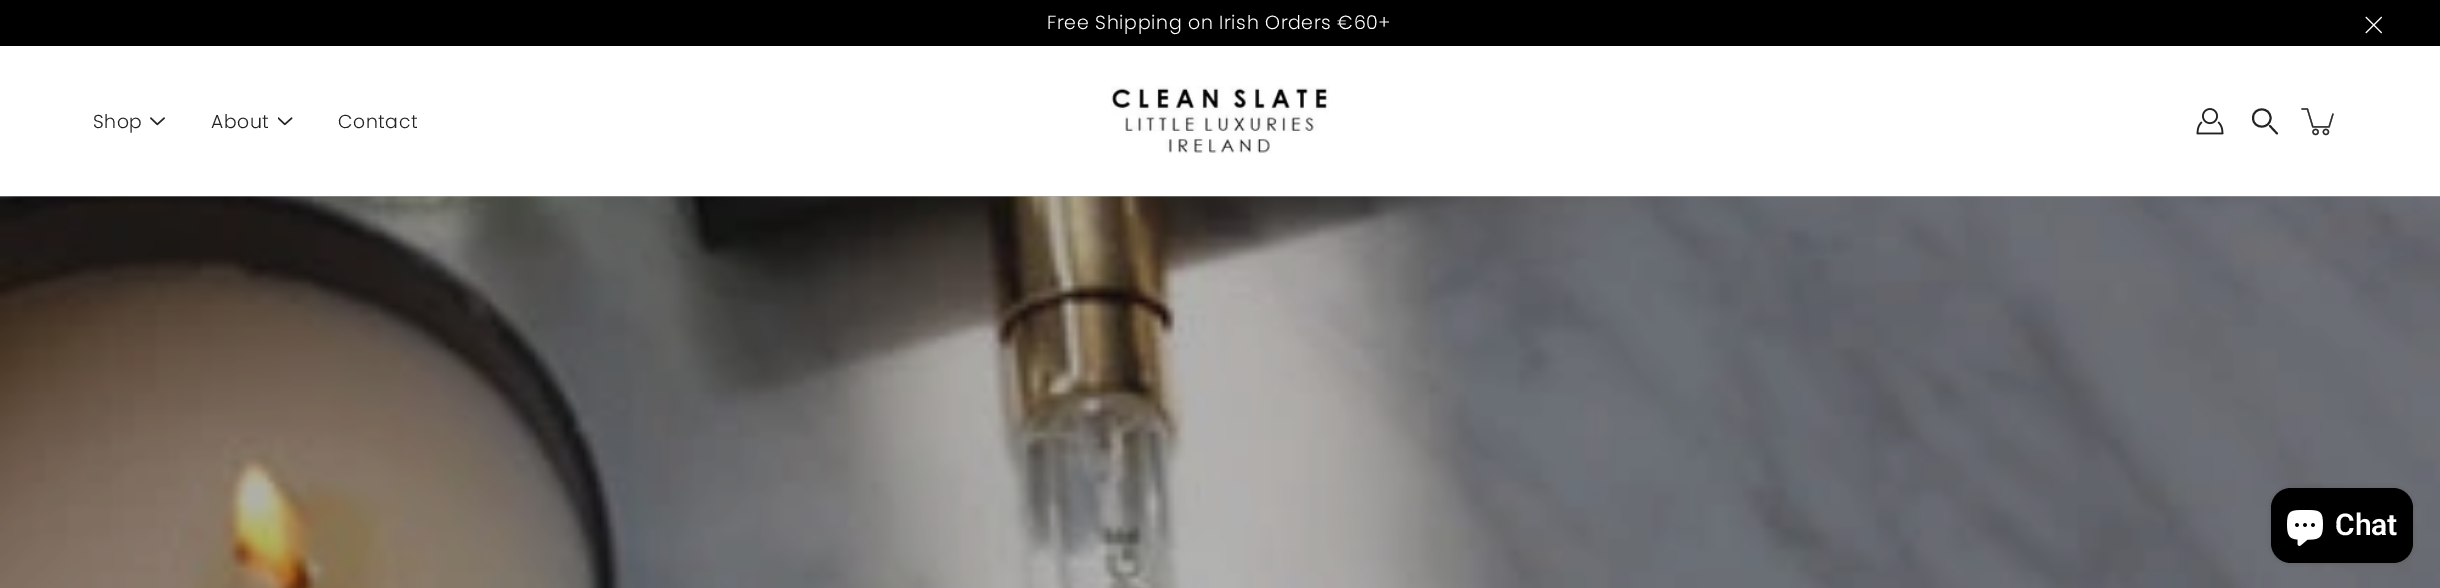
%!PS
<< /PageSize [2440 588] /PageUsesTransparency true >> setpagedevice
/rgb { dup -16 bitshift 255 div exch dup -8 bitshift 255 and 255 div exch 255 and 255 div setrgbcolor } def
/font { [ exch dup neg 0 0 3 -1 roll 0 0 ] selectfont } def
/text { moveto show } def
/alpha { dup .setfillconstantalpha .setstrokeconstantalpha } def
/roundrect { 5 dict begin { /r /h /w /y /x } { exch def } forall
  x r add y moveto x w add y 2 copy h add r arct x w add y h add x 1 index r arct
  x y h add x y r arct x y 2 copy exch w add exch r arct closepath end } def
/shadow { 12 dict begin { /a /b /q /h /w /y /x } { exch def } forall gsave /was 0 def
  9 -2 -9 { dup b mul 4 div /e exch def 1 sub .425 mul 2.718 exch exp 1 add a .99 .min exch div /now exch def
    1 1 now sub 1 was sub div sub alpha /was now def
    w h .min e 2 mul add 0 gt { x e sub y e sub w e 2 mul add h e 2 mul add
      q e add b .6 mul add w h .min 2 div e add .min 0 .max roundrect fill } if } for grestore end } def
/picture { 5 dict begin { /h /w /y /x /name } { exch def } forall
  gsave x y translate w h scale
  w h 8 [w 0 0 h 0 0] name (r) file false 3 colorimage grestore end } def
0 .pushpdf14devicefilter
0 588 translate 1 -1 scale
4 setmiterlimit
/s1 { /Roboto-SemiBold 30 font 16#FFFFFF rgb } def
16#FFFFFF rgb
0 0 2440 588 rectfill
16#B2B2B2 rgb
0 196 2440 1 rectfill
16#000000 rgb
0 0 2440 46 rectfill
/Poppins-Light 19 font
16#FFFFFF rgb
1047 29 moveto 0.6 0 (Free Shipping on Irish Orders €60+) ashow
(pic1.raw) 2365 16 17 18 picture
/Poppins-Light 18.75 font
16#222222 rgb
93 128 moveto 0.6 0 (Shop) ashow
(pic2.raw) 150 117 15 9 picture
211 128 moveto 0.6 0 (About) ashow
(pic3.raw) 278 117 15 9 picture
338 128 moveto 0.6 0 (Contact) ashow
(pic4.raw) 2196 108 28 27 picture
1.9 setlinewidth
2270.5 118 moveto 2270.5 129.5 2253 129.5 2253 118 curveto 2253 106.5 2270.5 106.5 2270.5 118 curveto closepath stroke
1 setlinecap
2270 126 moveto 2277 133.5 lineto stroke
(pic5.raw) 2301 108 33 28 picture
(pic6.raw) 1111 86 218 68 picture
(pic7.raw) 0 196 2440 392 picture
16#000000 rgb
2271 488 142 75 20 3 0.15 shadow
2271 488 142 75 20 roundrect fill
(pic8.raw) 2287 510 36 36 picture
s1
(Chat) 2335 535 text
.poppdf14devicefilter showpage
